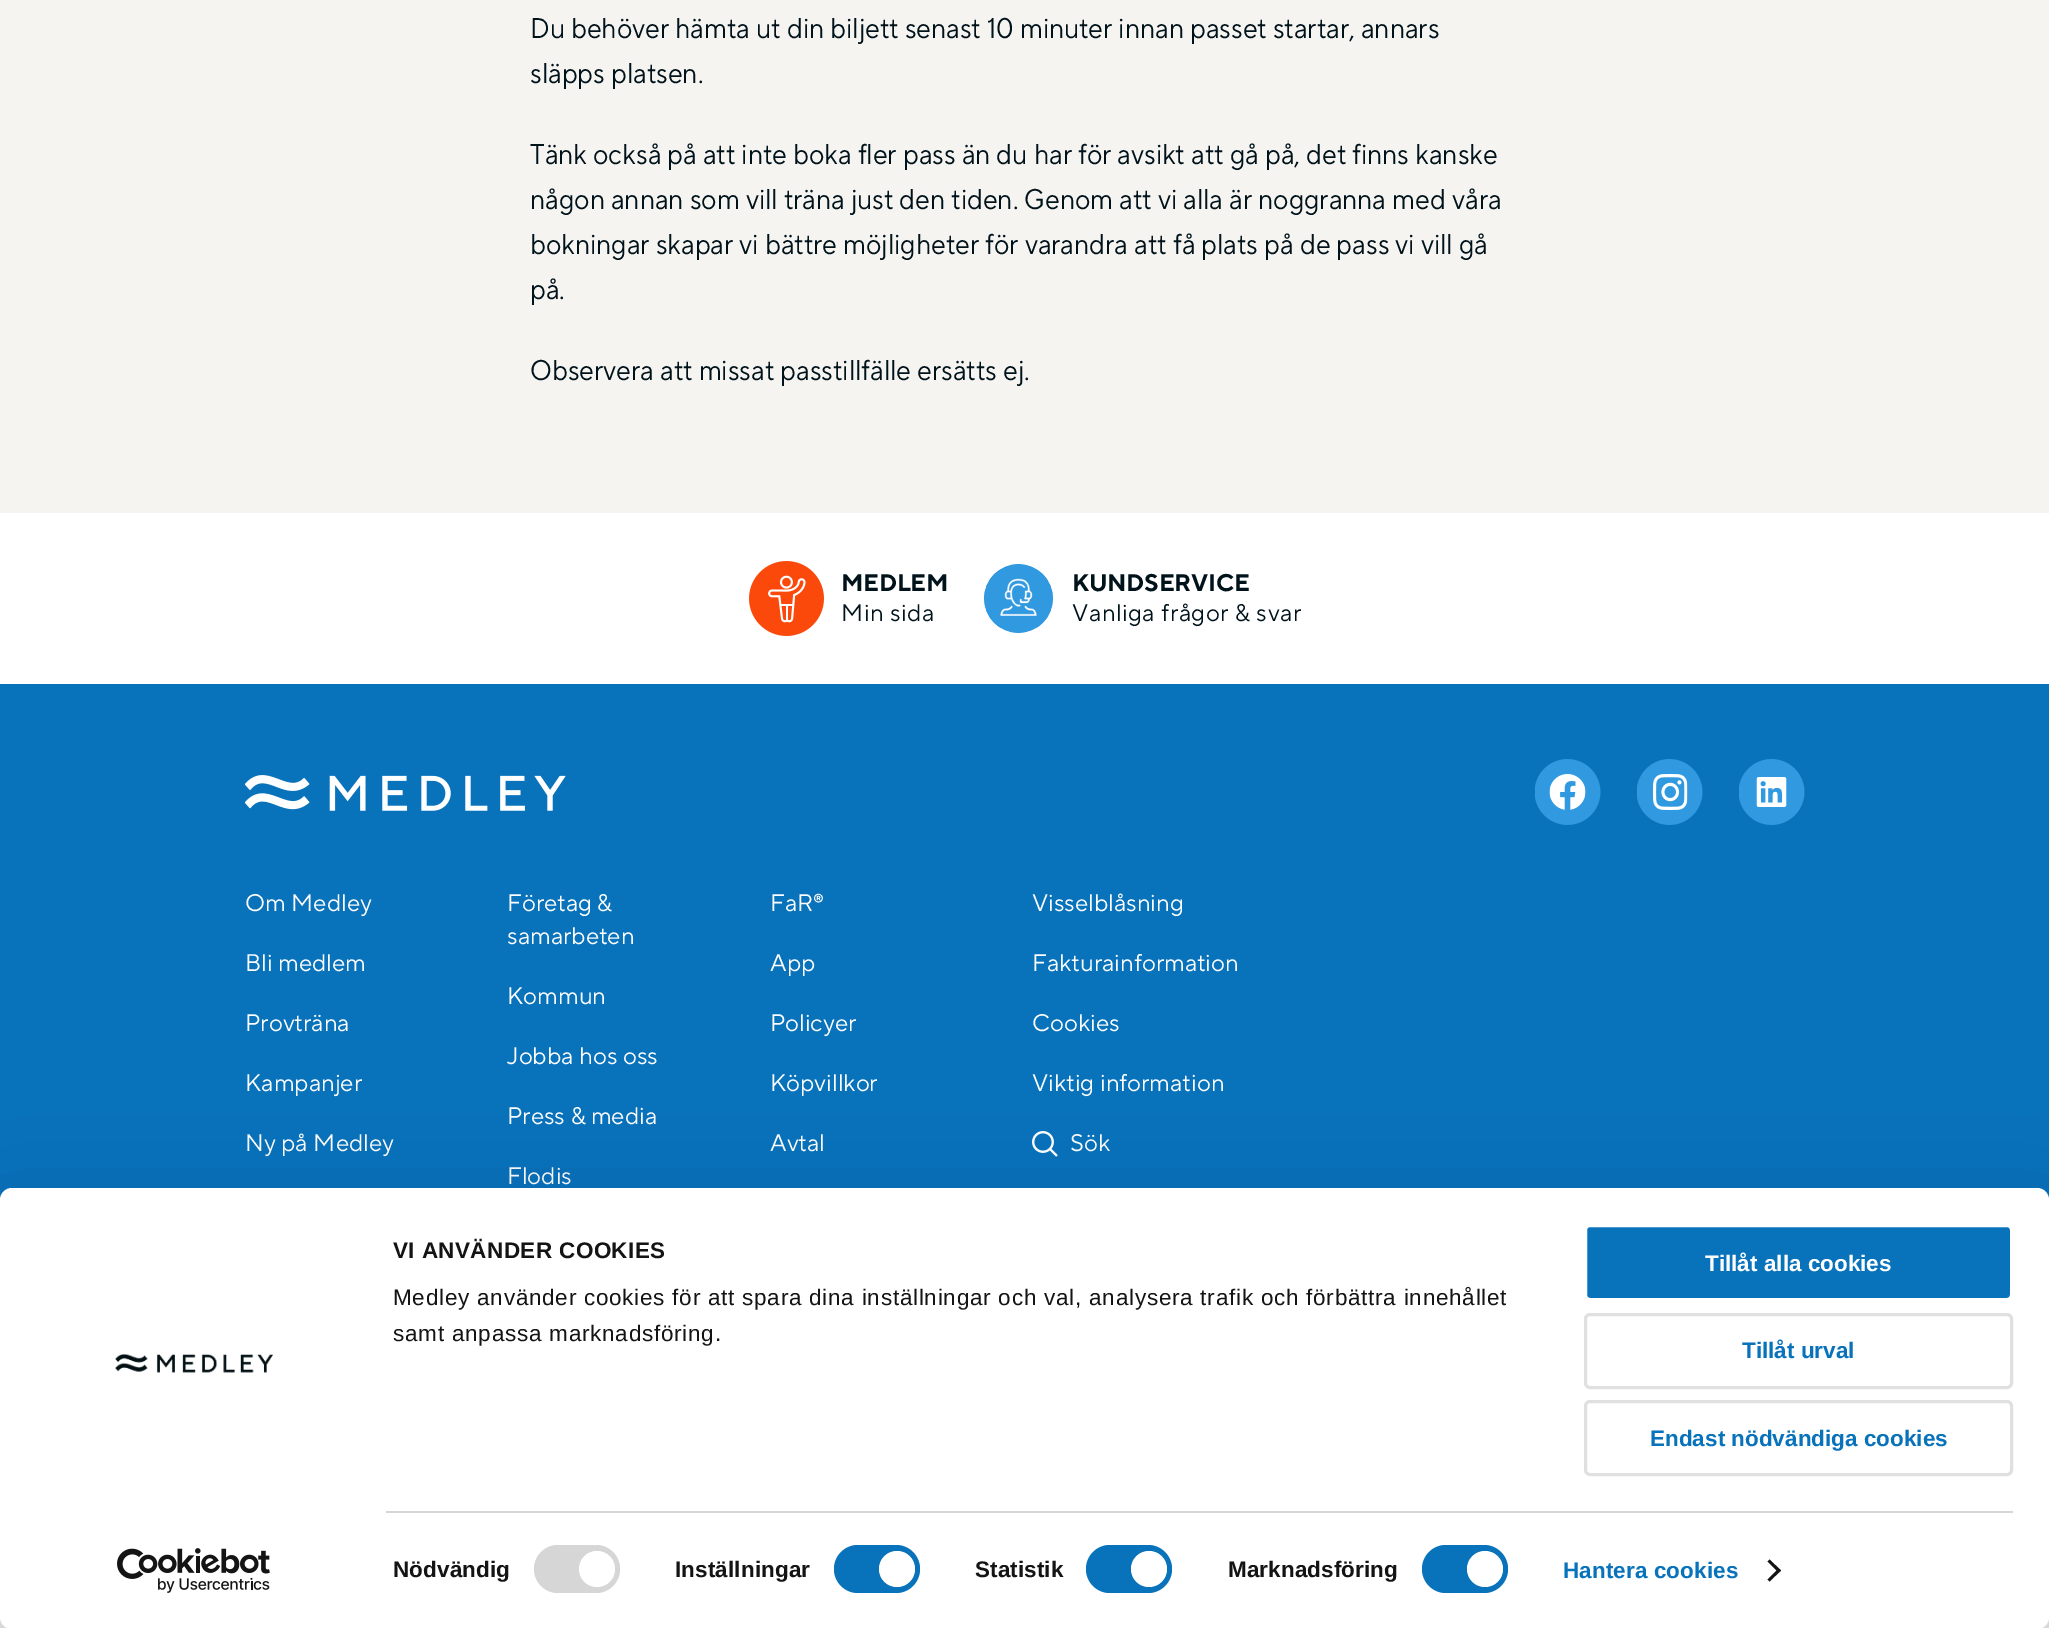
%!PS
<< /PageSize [2049 1628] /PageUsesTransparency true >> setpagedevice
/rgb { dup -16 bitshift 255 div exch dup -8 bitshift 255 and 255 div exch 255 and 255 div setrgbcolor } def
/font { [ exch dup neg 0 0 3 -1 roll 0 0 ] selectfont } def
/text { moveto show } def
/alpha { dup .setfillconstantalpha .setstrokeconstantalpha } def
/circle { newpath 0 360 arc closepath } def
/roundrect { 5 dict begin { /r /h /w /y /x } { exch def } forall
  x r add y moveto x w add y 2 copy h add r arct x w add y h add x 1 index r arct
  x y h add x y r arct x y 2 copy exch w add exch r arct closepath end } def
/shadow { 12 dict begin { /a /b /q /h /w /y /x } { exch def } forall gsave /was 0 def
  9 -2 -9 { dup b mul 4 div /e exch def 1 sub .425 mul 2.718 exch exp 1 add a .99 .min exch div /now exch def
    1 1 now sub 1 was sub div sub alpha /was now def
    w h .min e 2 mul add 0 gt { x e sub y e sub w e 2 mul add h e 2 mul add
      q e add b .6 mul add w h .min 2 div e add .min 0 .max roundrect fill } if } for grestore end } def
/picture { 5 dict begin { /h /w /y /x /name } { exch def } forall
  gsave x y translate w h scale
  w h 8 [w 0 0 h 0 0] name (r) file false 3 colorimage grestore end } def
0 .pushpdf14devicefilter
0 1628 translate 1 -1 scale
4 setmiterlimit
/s1 { /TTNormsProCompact-Regular 28.5 font 16#00131B rgb } def
/s2 { /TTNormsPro-Regular 24 font 16#FFFFFF rgb } def
/s3 { /LiberationSans-Bold 22.5 font 16#FFFFFF rgb } def
/s4 { /LiberationSans-Bold 22.5 font 16#0872BB rgb } def
16#FFFFFF rgb
0 0 2049 1628 rectfill
16#F6F4F1 rgb
0 0 2049 513 rectfill
s1
(Du behöver hämta ut din biljett senast 10 minuter innan passet startar, annars) 530 38 text
(släpps platsen.) 530 83 text
(Tänk också på att inte boka fler pass än du har för avsikt att gå på, det finns kanske) 530 164 text
(någon annan som vill träna just den tiden. Genom att vi alla är noggranna med våra) 530 209 text
(bokningar skapar vi bättre möjligheter för varandra att få plats på de pass vi vill gå) 530 254 text
(på.) 530 299 text
(Observera att missat passtillfälle ersätts ej.) 530 380 text
16#0872BB rgb
0 684 2049 516 rectfill
(pic1.raw) 749 561 75 75 picture
/TTNormsPro-Bold 24 font
16#00131B rgb
841 591 moveto -0.25 0 (MEDLEM) ashow
/TTNormsPro-Regular 24 font
841 621 moveto 0.5 0 (Min sida) ashow
(pic2.raw) 984 564 69 69 picture
/TTNormsPro-Bold 24 font
1072 591 moveto -0.25 0 (KUNDSERVICE) ashow
/TTNormsPro-Regular 24 font
1072 621 moveto 0.5 0 (Vanliga frågor & svar) ashow
(pic3.raw) 245 775 321 36 picture
(pic4.raw) 1535 759 66 66 picture
(pic5.raw) 1637 759 66 66 picture
(pic6.raw) 1739 759 66 66 picture
s2
(Om Medley) 245 911 text
(Företag &) 507 911 text
(samarbeten) 507 944 text
(FaR®) 770 911 text
(Visselblåsning) 1032 911 text
(Bli medlem) 245 971 text
(App) 770 971 text
(Fakturainformation) 1032 971 text
(Kommun) 507 1004 text
(Provträna) 245 1031 text
(Policyer) 770 1031 text
(Cookies) 1032 1031 text
(Jobba hos oss) 507 1064 text
(Kampanjer) 245 1091 text
(Köpvillkor) 770 1091 text
(Viktig information) 1032 1091 text
(Press & media) 507 1124 text
(Ny på Medley) 245 1151 text
(Avtal) 770 1151 text
(pic7.raw) 1032 1131 26 26 picture
(Sök) 1070 1151 text
(Flodis) 507 1184 text
16#000000 rgb
0 1233 2049 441 12 52.5 0.3 shadow
16#FFFFFF rgb
0 1188 2049 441 12 roundrect fill
(pic8.raw) 115 1353 158 20 picture
(pic9.raw) 117 1548 153 45 picture
/LiberationSans-Bold 22.5 font
16#141414 rgb
393 1258 moveto 0.4 0 (VI ANVÄNDER COOKIES) ashow
/LiberationSans-Regular 22.5 font
393 1305 moveto 0.75 0 (Medley använder cookies för att spara dina inställningar och val, analysera trafik och förbättra innehållet) ashow
393 1341 moveto 0.75 0 (samt anpassa marknadsföring.) ashow
16#D6D6D6 rgb
386 1511 1627 2 rectfill
/LiberationSans-Bold 22.5 font
16#141414 rgb
393 1577 moveto 0.1 0 (Nödvändig) ashow
16#D6D6D6 rgb
534 1545 86 48 24 roundrect fill
16#FFFFFF rgb
597 1569 18 circle fill
16#141414 rgb
675 1577 moveto 0.1 0 (Inställningar) ashow
16#0872BB rgb
834 1545 86 48 24 roundrect fill
16#FFFFFF rgb
897 1569 18 circle fill
16#141414 rgb
975 1577 moveto 0.1 0 (Statistik) ashow
16#0872BB rgb
1086 1545 86 48 24 roundrect fill
16#FFFFFF rgb
1149 1569 18 circle fill
16#141414 rgb
1228 1577 moveto 0.1 0 (Marknadsföring) ashow
16#0872BB rgb
1422 1545 86 48 24 roundrect fill
16#FFFFFF rgb
1485 1569 18 circle fill
16#0872BB rgb
1563 1578 moveto 0.1 0 (Hantera cookies) ashow
16#141414 rgb
1769.5 1559.5 moveto 1781 1570.5 lineto 1778.5 1572.5 lineto 1767.5 1561.5 lineto closepath fill
1778.5 1568.5 moveto 1781 1570.5 lineto 1769.5 1581.5 lineto 1767.5 1579.5 lineto closepath fill
16#0872BB rgb
1585.5 1225.5 426 74 4.5 roundrect gsave fill grestore
16#FFFFFF rgb
3 setlinewidth
stroke
(Tillåt alla cookies) 1705 1271 text
16#E0E0E0 rgb
1585.5 1314.5 426 73 4.5 roundrect stroke
s4
(Tillåt urval) 1742 1358 text
16#E0E0E0 rgb
1585.5 1401.5 426 73 4.5 roundrect stroke
s4
(Endast nödvändiga cookies) 1650 1446 text
.poppdf14devicefilter showpage
